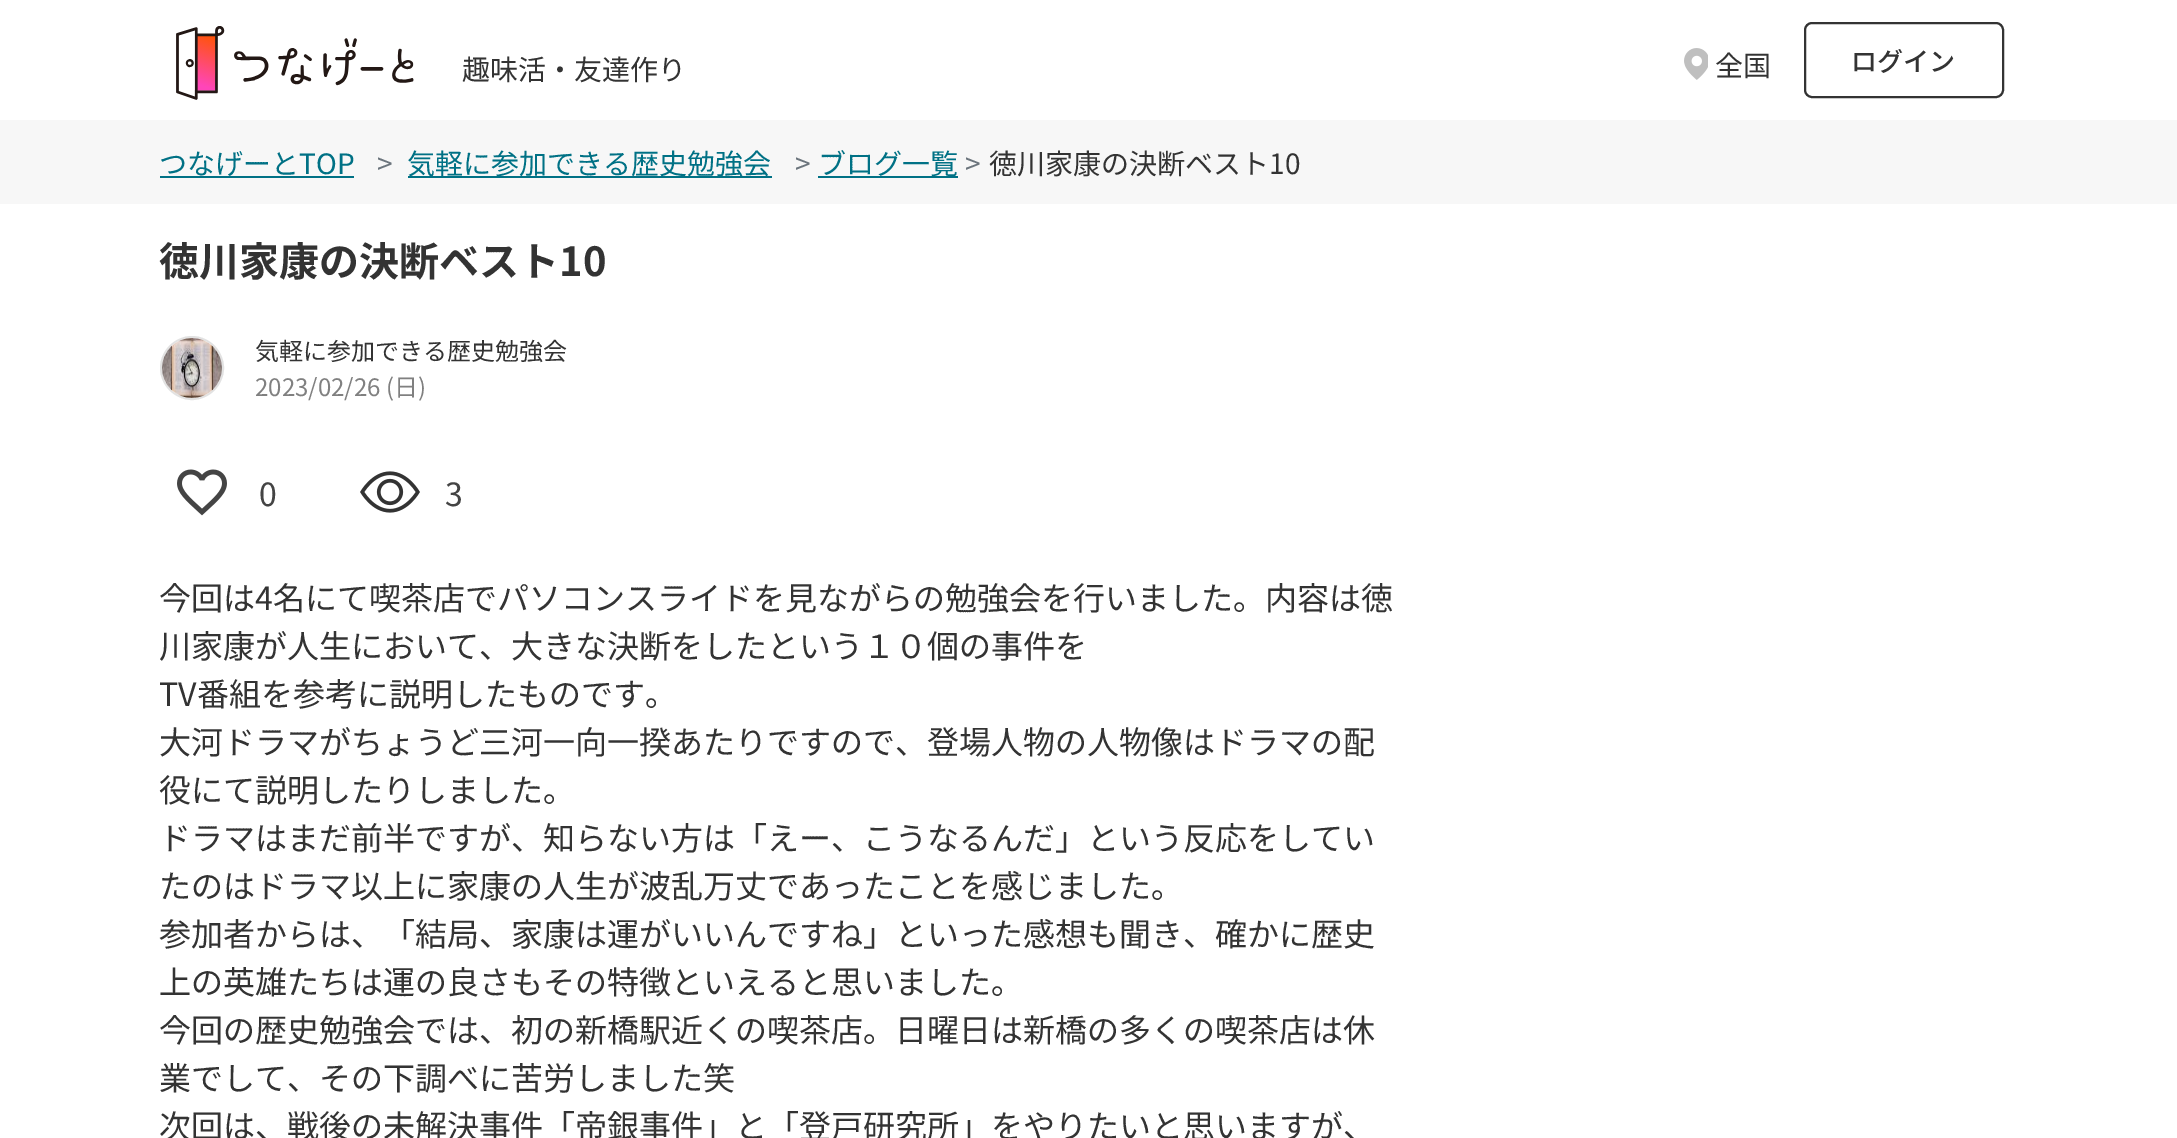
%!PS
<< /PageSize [2177 1138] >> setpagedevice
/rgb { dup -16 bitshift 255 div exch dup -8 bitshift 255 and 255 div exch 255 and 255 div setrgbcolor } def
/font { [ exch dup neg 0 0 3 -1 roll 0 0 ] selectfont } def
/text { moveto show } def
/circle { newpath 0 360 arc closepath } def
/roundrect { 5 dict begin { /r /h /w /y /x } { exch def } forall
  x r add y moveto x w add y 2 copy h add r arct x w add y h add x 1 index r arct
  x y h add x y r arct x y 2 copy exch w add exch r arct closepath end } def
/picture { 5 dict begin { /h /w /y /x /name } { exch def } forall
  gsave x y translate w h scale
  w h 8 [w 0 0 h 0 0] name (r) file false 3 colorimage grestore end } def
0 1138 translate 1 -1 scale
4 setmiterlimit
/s1 { /NotoSansJP-Regular 28 font 16#333333 rgb } def
/s2 { /NotoSansJP-Medium 26 font 16#333333 rgb } def
/s3 { /NotoSansJP-Regular 28 font 16#007185 rgb } def
/s4 { /NotoSansJP-Regular 28 font 16#6C757D rgb } def
/s5 { /NotoSansJP-Bold 40 font 16#333333 rgb } def
/s6 { /NotoSansJP-Regular 24 font 16#333333 rgb } def
/s7 { /NotoSansJP-Regular 24 font 16#808080 rgb } def
/s8 { /NotoSansJP-Regular 32 font 16#444444 rgb } def
/s9 { /NotoSansJP-Regular 32 font 16#333333 rgb } def
16#FFFFFF rgb
0 0 2177 1138 rectfill
(pic1.raw) 176 26 238 74 picture
s1
(趣味活・友達作り) 462 80 text
(pic2.raw) 1684 48 24 32 picture
(全国) 1715 76 text
2 setlinewidth
1805 23 198 74 7 roundrect stroke
s2
(ログイン) 1851 71 text
16#F7F7F7 rgb
0 120 2177 84 rectfill
16#007185 rgb
160 176 194 2 rectfill
s3
(つなげーとTOP) 159 174 text
s4
(>) 377 174 text
16#007185 rgb
408 176 364 2 rectfill
(気軽に参加できる歴史勉強会) 407 174 text
s4
(>) 795 174 text
16#007185 rgb
818 176 140 2 rectfill
(ブログ一覧) 818 174 text
s4
(>) 965 174 text
s1
(徳川家康の決断ベスト10) 989 174 text
s5
(徳川家康の決断ベスト10) 159 276 text
16#E2E2E2 rgb
192 368 31 circle stroke
(pic3.raw) 162 338 60 60 picture
s6
(気軽に参加できる歴史勉強会) 255 360 text
s7
(2023/02/26 \(日\)) 255 396 text
(pic4.raw) 177 469 50 47 picture
s8
(0) 259 506 text
(pic5.raw) 360 471 60 42 picture
(3) 445 506 text
s9
(今回は4名にて喫茶店でパソコンスライドを見ながらの勉強会を行いました。内容は徳) 159 610 text
(川家康が人生において、大きな決断をしたという１０個の事件を) 159 658 text
(TV番組を参考に説明したものです。) 159 706 text
(大河ドラマがちょうど三河一向一揆あたりですので、登場人物の人物像はドラマの配) 159 754 text
(役にて説明したりしました。) 159 802 text
(ドラマはまだ前半ですが、知らない方は「えー、こうなるんだ」という反応をしてい) 159 850 text
(たのはドラマ以上に家康の人生が波乱万丈であったことを感じました。) 159 898 text
(参加者からは、「結局、家康は運がいいんですね」といった感想も聞き、確かに歴史) 159 946 text
(上の英雄たちは運の良さもその特徴といえると思いました。) 159 994 text
(今回の歴史勉強会では、初の新橋駅近くの喫茶店。日曜日は新橋の多くの喫茶店は休) 159 1042 text
(業でして、その下調べに苦労しました笑) 159 1090 text
(次回は、戦後の未解決事件「帝銀事件」と「登戸研究所」をやりたいと思いますが、) 159 1138 text
showpage
